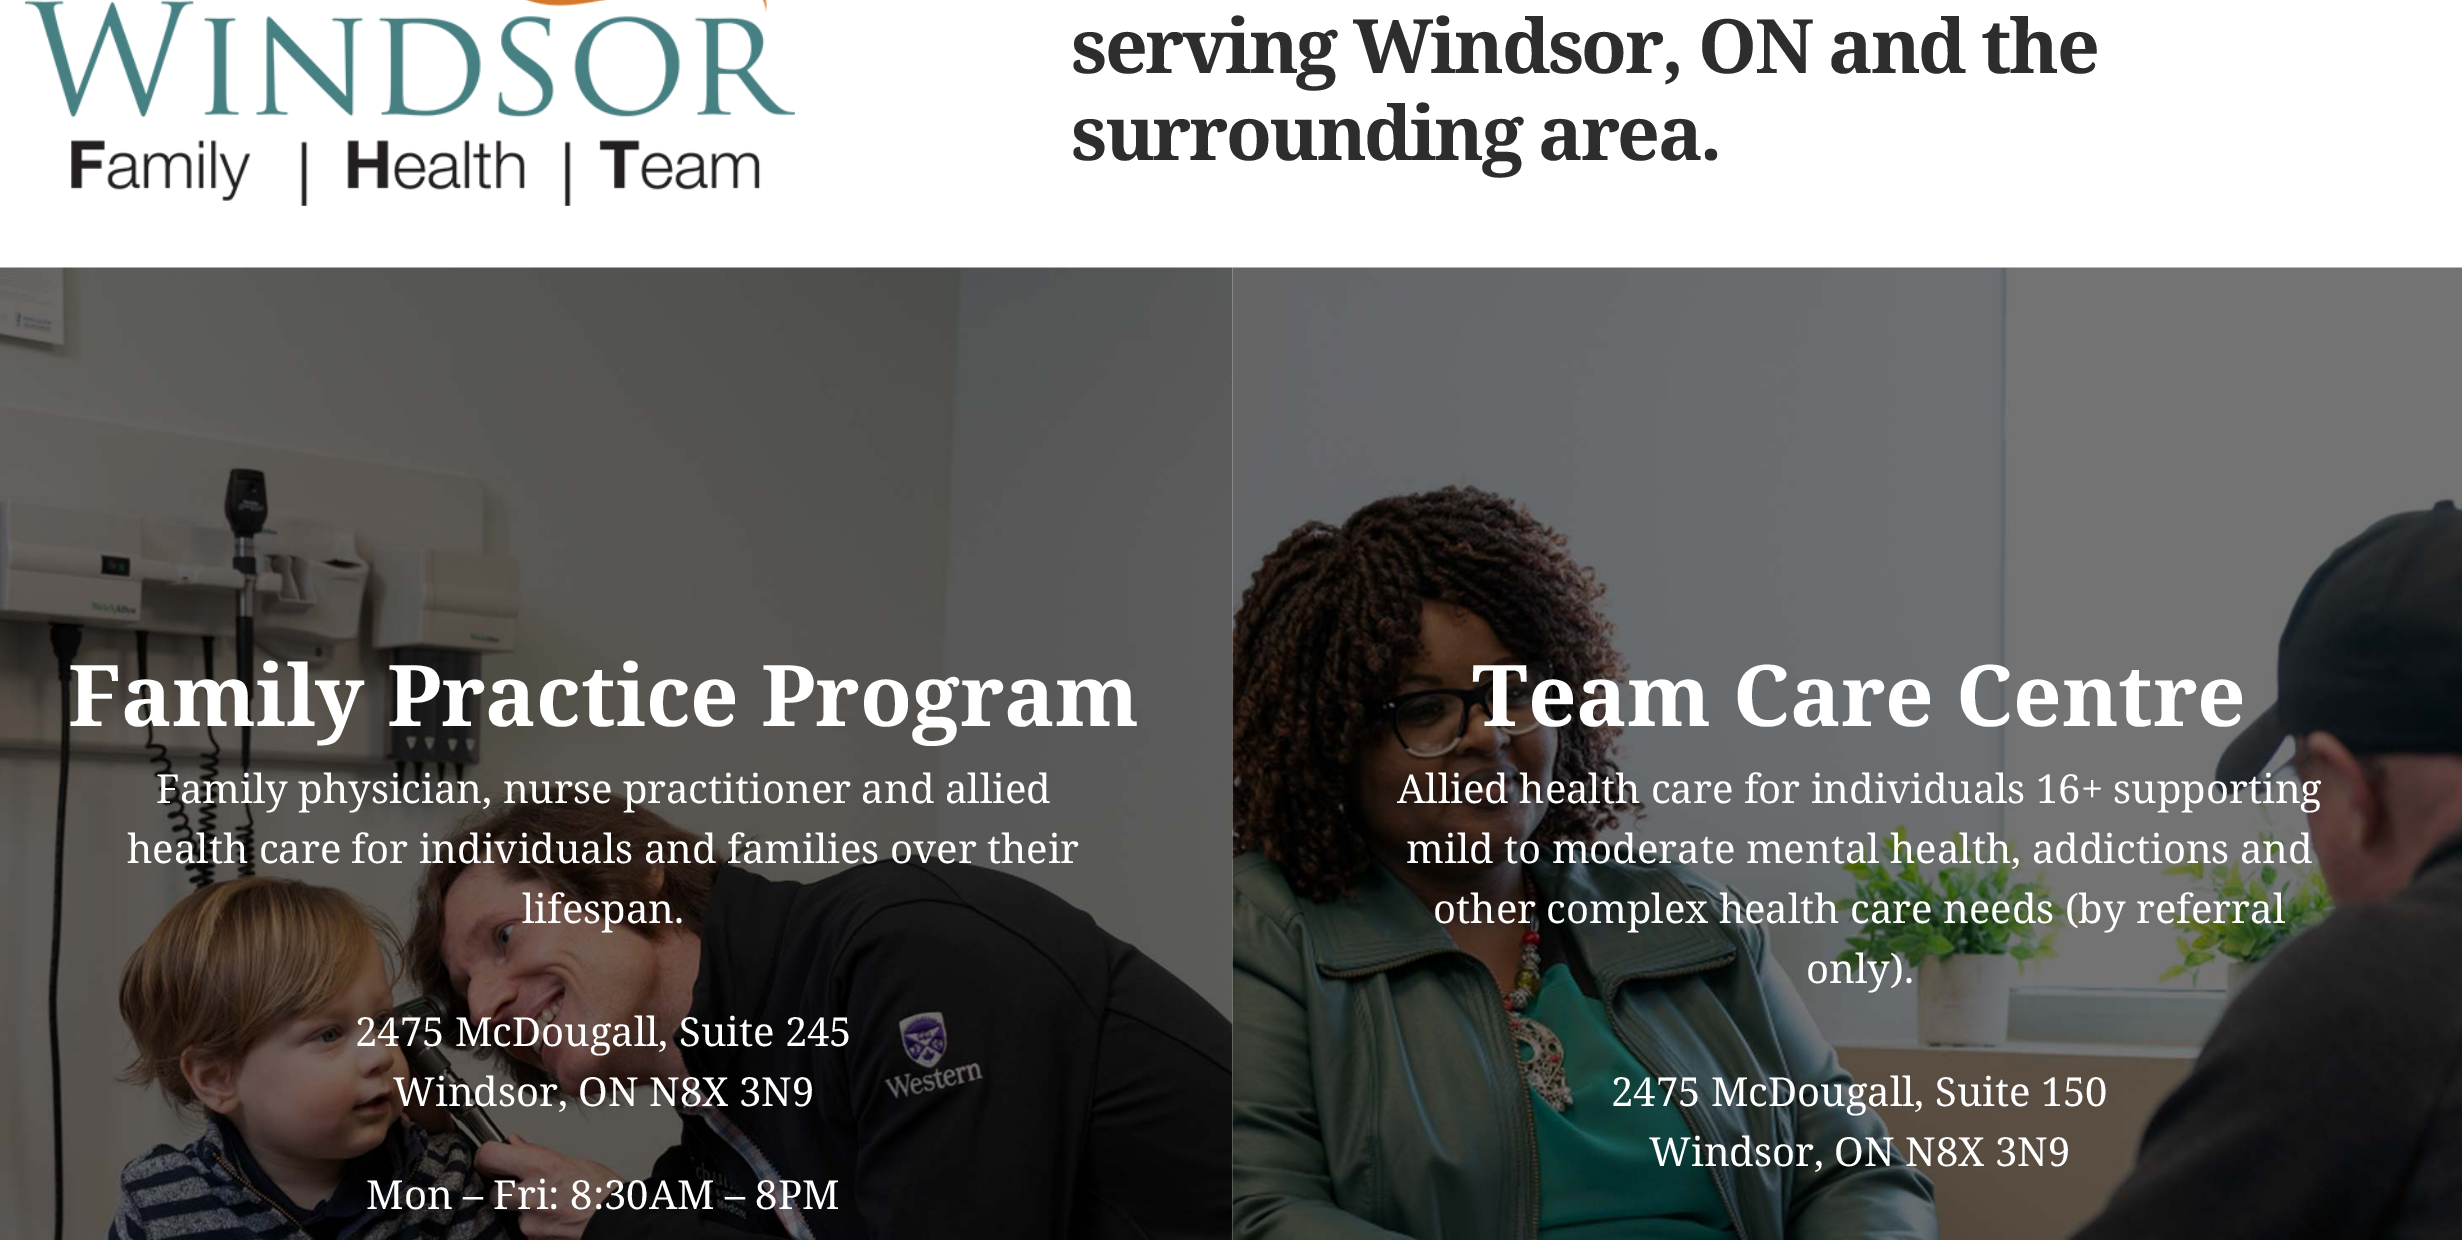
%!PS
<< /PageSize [2462 1240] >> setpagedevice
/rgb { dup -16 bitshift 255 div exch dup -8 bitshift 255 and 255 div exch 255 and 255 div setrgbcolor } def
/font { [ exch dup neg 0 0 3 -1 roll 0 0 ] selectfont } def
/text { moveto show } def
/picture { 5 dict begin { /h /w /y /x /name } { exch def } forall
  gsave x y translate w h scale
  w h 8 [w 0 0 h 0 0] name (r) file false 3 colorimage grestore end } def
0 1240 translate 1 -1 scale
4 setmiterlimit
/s1 { /NotoSerif-Bold 85 font 16#FFFFFF rgb } def
/s2 { /NotoSerif-Regular 40 font 16#FFFFFF rgb } def
16#FFFFFF rgb
0 0 2462 1240 rectfill
(pic1.raw) 25 0 770 206 picture
/NotoSerif-Bold 75 font
16#2D2D2D rgb
1071 73 moveto -2.5 0 (serving Windsor, ON and the) ashow
1071 160 moveto -2.5 0 (surrounding area.) ashow
(pic2.raw) 0 267 1233 973 picture
s1
(Family Practice Program) 68 726 text
s2
(Family physician, nurse practitioner and allied) 156 803 text
(health care for individuals and families over their) 127 863 text
(lifespan.) 522 923 text
(2475 McDougall, Suite 245) 355 1046 text
(Windsor, ON N8X 3N9) 393 1106 text
(Mon – Fri: 8:30AM – 8PM) 366 1209 text
(pic3.raw) 1232 267 1230 973 picture
s1
(Team Care Centre) 1472 726 text
s2
(Allied health care for individuals 16+ supporting) 1397 803 text
(mild to moderate mental health, addictions and) 1406 863 text
(other complex health care needs \(by referral) 1433 923 text
(only\).) 1806 983 text
(2475 McDougall, Suite 150) 1611 1106 text
(Windsor, ON N8X 3N9) 1649 1166 text
showpage
